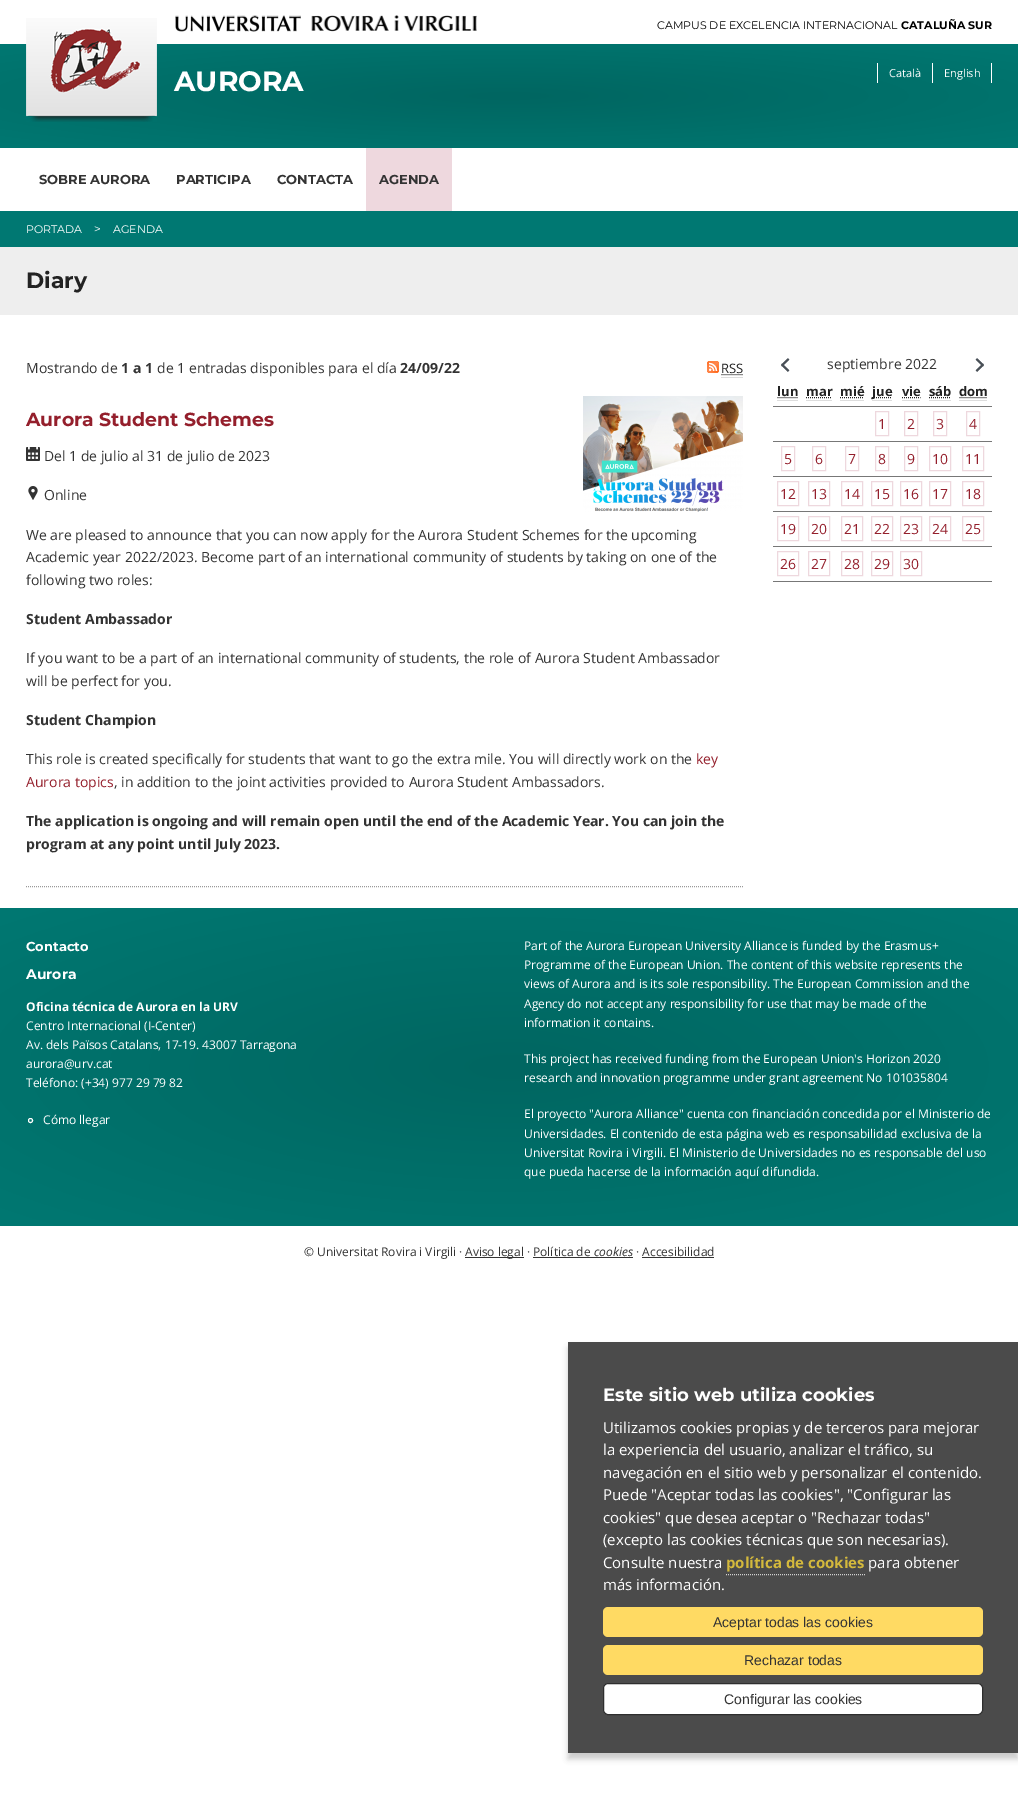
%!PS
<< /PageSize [1018 1813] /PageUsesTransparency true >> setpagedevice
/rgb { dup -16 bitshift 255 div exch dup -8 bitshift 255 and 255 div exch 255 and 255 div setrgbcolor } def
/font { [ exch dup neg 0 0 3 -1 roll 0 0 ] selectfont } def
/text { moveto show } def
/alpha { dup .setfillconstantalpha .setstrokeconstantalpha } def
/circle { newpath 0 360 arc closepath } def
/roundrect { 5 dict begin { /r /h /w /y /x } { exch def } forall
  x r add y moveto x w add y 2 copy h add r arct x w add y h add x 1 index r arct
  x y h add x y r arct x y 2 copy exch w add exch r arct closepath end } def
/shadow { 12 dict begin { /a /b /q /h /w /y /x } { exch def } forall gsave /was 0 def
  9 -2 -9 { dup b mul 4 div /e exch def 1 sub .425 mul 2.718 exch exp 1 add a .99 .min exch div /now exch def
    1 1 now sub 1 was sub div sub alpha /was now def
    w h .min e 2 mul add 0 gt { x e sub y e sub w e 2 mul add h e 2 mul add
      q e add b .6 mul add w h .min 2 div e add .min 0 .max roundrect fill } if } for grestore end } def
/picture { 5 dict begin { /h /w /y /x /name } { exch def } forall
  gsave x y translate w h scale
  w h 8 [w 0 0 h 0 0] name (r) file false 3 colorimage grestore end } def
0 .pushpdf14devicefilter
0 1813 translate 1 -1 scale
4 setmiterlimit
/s1 { /Montserrat-Regular 11 font 16#000000 rgb } def
/s2 { /Montserrat-Bold 11 font 16#000000 rgb } def
/s3 { /Montserrat-Bold 28 font 16#FFFFFF rgb } def
/s4 { /OpenSans-Regular 11 font 16#FFFFFF rgb } def
/s5 { /Montserrat-Bold 13 font 16#333333 rgb } def
/s6 { /Montserrat-Regular 11 font 16#FFFFFF rgb } def
/s7 { /Montserrat-Regular 12 font 16#FFFFFF rgb } def
/s8 { /Montserrat-Bold 22 font 16#222222 rgb } def
/s9 { /OpenSans-Regular 14 font 16#333333 rgb } def
/s10 { /OpenSans-Bold 14 font 16#333333 rgb } def
/s11 { /OpenSans-Regular 13 font 16#222222 rgb } def
/s12 { /Montserrat-Bold 18.9 font 16#941F2C rgb } def
/s13 { /OpenSans-Regular 14 font 16#941F2C rgb } def
/s14 { /OpenSans-Bold 13 font 16#222222 rgb } def
/s15 { /Montserrat-Bold 13 font 16#FFFFFF rgb } def
/s16 { /Montserrat-Bold 14 font 16#FFFFFF rgb } def
/s17 { /OpenSans-Bold 12 font 16#FFFFFF rgb } def
/s18 { /OpenSans-Regular 12 font 16#FFFFFF rgb } def
/s19 { /OpenSans-Regular 12 font 16#333333 rgb } def
/s20 { /OpenSans-Italic 12 font 16#333333 rgb } def
/s21 { /Montserrat-Bold 18 font 16#FFFFFF rgb } def
/s22 { /OpenSans-Regular 15 font 16#FFFFFF rgb } def
/s23 { /OpenSans-Bold 15 font 16#D4B93C rgb } def
/s24 { /LiberationSans-Regular 14 font 16#333333 rgb } def
16#FFFFFF rgb
0 0 1018 1813 rectfill
(pic1.raw) 175 15 302 17 picture
s1
(CAMPUS DE EXCELENCIA INTERNACIONAL) 657 29 text
s2
(CATALUÑA SUR) 901 29 text
gsave 0 44 moveto 1018 44 lineto 1018 148 lineto 0 148 lineto closepath clip newpath 509 96 translate 720 74 scale
<< /ShadingType 3 /ColorSpace /DeviceRGB /Coords [0 0 0 0 0 1] /Extend [true true] /Function << /FunctionType 2 /Domain [0 1] /C0 [0 0.4 0.38] /C1 [0 0.471 0.447] /N 1 >> >> shfill grestore
(pic2.raw) 26 18 131 104 picture
s3
(AURORA) 174 91 text
932 63 1 20 rectfill
877 63 1 20 rectfill
s4
(Català) 889 77 text
991 63 1 20 rectfill
(English) 944 77 text
s5
(SOBRE AURORA) 39 184 text
(PARTICIPA) 176 184 text
(CONTACTA) 277 184 text
16#EED8DE rgb
366 148 86 63 rectfill
s5
(AGENDA) 379 184 text
16#007872 rgb
0 211 1018 36 rectfill
s6
(PORTADA) 26 233 text
s7
(>) 94 233 text
s6
(AGENDA) 113 233 text
16#EEEEEE rgb
0 247 1018 68 rectfill
s8
(Diary) 26 288 text
s9
(Mostrando de) 26 373 text
s10
(1 a 1) 121 373 text
s9
(de 1 entradas disponibles para el día) 157 373 text
s10
(24/09/22) 400 373 text
(pic3.raw) 707 361 12 12 picture
s11
(RSS) 721 373 text
16#DDDDDD rgb
721 377 22 1 rectfill
16#222222 rgb
[1 1] 0 setdash
721.5 374.5 moveto 743 374.5 lineto stroke
16#999999 rgb
26 886.5 moveto 743 886.5 lineto stroke
s12
(Aurora Student Schemes) 26 426 text
(pic4.raw) 583 396 160 116 picture
(pic5.raw) 26 447 14 14 picture
s9
(Del 1 de julio al 31 de julio de 2023) 44 461 text
(pic6.raw) 28 486 10 14 picture
(Online) 44 500 text
(We are pleased to announce that you can now apply for the Aurora Student Schemes for the upcoming) 26 540 text
(Academic year 2022/2023. Become part of an international community of students by taking on one of the) 26 562 text
(following two roles:) 26 585 text
s10
(Student Ambassador) 26 624 text
s9
(If you want to be a part of an international community of students, the role of Aurora Student Ambassador) 26 663 text
(will be perfect for you.) 26 686 text
s10
(Student Champion) 26 725 text
s9
(This role is created specifically for students that want to go the extra mile. You will directly work on the) 26 764 text
s13
(key) 696 764 text
(Aurora topics) 26 787 text
s9
(, in addition to the joint activities provided to Aurora Student Ambassadors.) 114 787 text
s10
(The application is ongoing and will remain open until the end of the Academic Year. You can join the) 26 826 text
(program at any point until July 2023.) 26 849 text
(pic7.raw) 781 358 9 14 picture
s9
(septiembre 2022) 827 369 text
(pic8.raw) 975 358 9 14 picture
16#777777 rgb
773 406 219 1 rectfill
s14
(lun) 777 396 text
16#DDDDDD rgb
777 400 21 1 rectfill
16#222222 rgb
777.5 397.5 moveto 798 397.5 lineto stroke
(mar) 806 396 text
16#DDDDDD rgb
806 400 26 1 rectfill
16#222222 rgb
806 397.5 moveto 832 397.5 lineto stroke
(mié) 840 396 text
16#DDDDDD rgb
840 400 24 1 rectfill
16#222222 rgb
840 397.5 moveto 863.5 397.5 lineto stroke
872 397.5 moveto 891.5 397.5 lineto stroke
(jue) 872 396 text
16#DDDDDD rgb
872 400 20 1 rectfill
s14
(vie) 902 396 text
16#DDDDDD rgb
902 400 18 1 rectfill
16#222222 rgb
902 397.5 moveto 920.5 397.5 lineto stroke
(sáb) 929 396 text
16#DDDDDD rgb
929 400 22 1 rectfill
16#222222 rgb
929 397.5 moveto 951 397.5 lineto stroke
(dom) 959 396 text
16#DDDDDD rgb
959 400 28 1 rectfill
16#222222 rgb
959.5 397.5 moveto 987.5 397.5 lineto stroke
16#777777 rgb
773 441 219 1 rectfill
16#EED8DE rgb
[] 0 setdash
875.5 411.5 13 24 rectstroke
s13
(1) 878 429 text
16#EED8DE rgb
904.5 411.5 13 24 rectstroke
s13
(2) 907 429 text
16#EED8DE rgb
933.5 411.5 13 24 rectstroke
s13
(3) 936 429 text
16#EED8DE rgb
966.5 411.5 13 24 rectstroke
s13
(4) 969 429 text
16#777777 rgb
773 476 219 1 rectfill
16#EED8DE rgb
781.5 446.5 13 24 rectstroke
s13
(5) 784 464 text
16#EED8DE rgb
812.5 446.5 13 24 rectstroke
s13
(6) 815 464 text
16#EED8DE rgb
845.5 446.5 13 24 rectstroke
s13
(7) 848 464 text
16#EED8DE rgb
875.5 446.5 13 24 rectstroke
s13
(8) 878 464 text
16#EED8DE rgb
904.5 446.5 13 24 rectstroke
s13
(9) 907 464 text
16#EED8DE rgb
929.5 446.5 21 24 rectstroke
s13
(10) 932 464 text
16#EED8DE rgb
962.5 446.5 21 24 rectstroke
s13
(11) 965 464 text
16#777777 rgb
773 511 219 1 rectfill
16#EED8DE rgb
777.5 481.5 21 24 rectstroke
s13
(12) 780 499 text
16#EED8DE rgb
808.5 481.5 21 24 rectstroke
s13
(13) 811 499 text
16#EED8DE rgb
841.5 481.5 21 24 rectstroke
s13
(14) 844 499 text
16#EED8DE rgb
871.5 481.5 21 24 rectstroke
s13
(15) 874 499 text
16#EED8DE rgb
900.5 481.5 21 24 rectstroke
s13
(16) 903 499 text
16#EED8DE rgb
929.5 481.5 21 24 rectstroke
s13
(17) 932 499 text
16#EED8DE rgb
962.5 481.5 21 24 rectstroke
s13
(18) 965 499 text
16#777777 rgb
773 546 219 1 rectfill
16#EED8DE rgb
777.5 516.5 21 24 rectstroke
s13
(19) 780 534 text
16#EED8DE rgb
808.5 516.5 21 24 rectstroke
s13
(20) 811 534 text
16#EED8DE rgb
841.5 516.5 21 24 rectstroke
s13
(21) 844 534 text
16#EED8DE rgb
871.5 516.5 21 24 rectstroke
s13
(22) 874 534 text
16#EED8DE rgb
900.5 516.5 21 24 rectstroke
s13
(23) 903 534 text
16#EED8DE rgb
929.5 516.5 21 24 rectstroke
s13
(24) 932 534 text
16#EED8DE rgb
962.5 516.5 21 24 rectstroke
s13
(25) 965 534 text
16#777777 rgb
773 581 219 1 rectfill
16#EED8DE rgb
777.5 551.5 21 24 rectstroke
s13
(26) 780 569 text
16#EED8DE rgb
808.5 551.5 21 24 rectstroke
s13
(27) 811 569 text
16#EED8DE rgb
841.5 551.5 21 24 rectstroke
s13
(28) 844 569 text
16#EED8DE rgb
871.5 551.5 21 24 rectstroke
s13
(29) 874 569 text
16#EED8DE rgb
900.5 551.5 21 24 rectstroke
s13
(30) 903 569 text
gsave 0 908 moveto 1018 908 lineto 1018 1226 lineto 0 1226 lineto closepath clip newpath 509 1067 translate 720 225 scale
<< /ShadingType 3 /ColorSpace /DeviceRGB /Coords [0 0 0 0 0 1] /Extend [true true] /Function << /FunctionType 2 /Domain [0 1] /C0 [0 0.4 0.38] /C1 [0 0.471 0.447] /N 1 >> >> shfill grestore
s15
(Contacto) 26 951 text
s16
(Aurora) 26 979 text
s17
(Oficina técnica de Aurora en la URV) 26 1011 text
s18
(Centro Internacional \(I-Center\)) 26 1030 text
(Av. dels Països Catalans, 17-19. 43007 Tarragona) 26 1049 text
(aurora@urv.cat) 26 1068 text
(Teléfono: \(+34\) 977 29 79 82) 26 1087 text
30.5 1120.5 2 circle stroke
(Cómo llegar) 43 1124 text
(Part of the Aurora European University Alliance is funded by the Erasmus+) 524 950 text
(Programme of the European Union. The content of this website represents the) 524 969 text
(views of Aurora and is its sole responsibility. The European Commission and the) 524 988 text
(Agency do not accept any responsibility for use that may be made of the) 524 1008 text
(information it contains.) 524 1027 text
(This project has received funding from the European Union's Horizon 2020) 524 1063 text
(research and innovation programme under grant agreement No 101035804) 524 1082 text
(El proyecto "Aurora Alliance" cuenta con financiación concedida por el Ministerio de) 524 1118 text
(Universidades. El contenido de esta página web es responsabilidad exclusiva de la) 524 1138 text
(Universitat Rovira i Virgili. El Ministerio de Universidades no es responsable del uso) 524 1157 text
(que pueda hacerse de la información aquí difundida.) 524 1176 text
s19
(© Universitat Rovira i Virgili ·) 304 1256 text
465 1257 59 1 rectfill
(Aviso legal · Política de) 465 1256 text
533 1257 100 1 rectfill
s20
(cookies) 594 1256 text
s19
(· Accesibilidad) 636 1256 text
642 1257 72 1 rectfill
16#2E2E2E rgb
568 1348 450 411 0 3 0.25 shadow
16#4B4B4B rgb
568 1342 450 411 rectfill
s21
(Este sitio web utiliza cookies) 603 1401 text
s22
(Utilizamos cookies propias y de terceros para mejorar) 603 1433 text
(la experiencia del usuario, analizar el tráfico, su) 603 1455 text
(navegación en el sitio web y personalizar el contenido.) 603 1478 text
(Puede "Aceptar todas las cookies", "Configurar las) 603 1500 text
(cookies" que desea aceptar o "Rechazar todas") 603 1523 text
(\(excepto las cookies técnicas que son necesarias\).) 603 1545 text
(Consulte nuestra) 603 1568 text
s23
(política de cookies) 726 1568 text
16#D2D2D2 rgb
[1 1] 0 setdash
726 1574.5 moveto 865 1574.5 lineto stroke
s22
(para obtener) 868 1568 text
(más información.) 603 1590 text
16#FFDA63 rgb
603 1607 380 30 5 roundrect fill
s24
(Aceptar todas las cookies) 713 1627 text
16#FFDA63 rgb
603 1645 380 30 5 roundrect fill
s24
(Rechazar todas) 744 1665 text
16#FFFFFF rgb
603.5 1683.5 379 31 4.5 roundrect gsave fill grestore
16#2E2E2E rgb
[] 0 setdash
stroke
s24
(Configurar las cookies) 724 1704 text
.poppdf14devicefilter showpage
